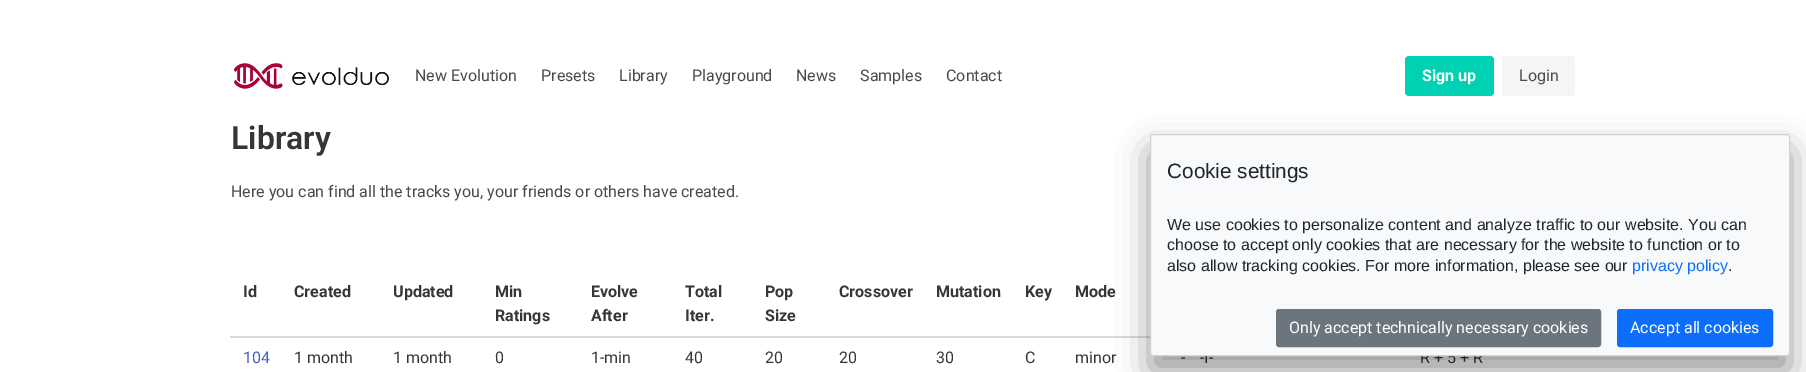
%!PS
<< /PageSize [1806 372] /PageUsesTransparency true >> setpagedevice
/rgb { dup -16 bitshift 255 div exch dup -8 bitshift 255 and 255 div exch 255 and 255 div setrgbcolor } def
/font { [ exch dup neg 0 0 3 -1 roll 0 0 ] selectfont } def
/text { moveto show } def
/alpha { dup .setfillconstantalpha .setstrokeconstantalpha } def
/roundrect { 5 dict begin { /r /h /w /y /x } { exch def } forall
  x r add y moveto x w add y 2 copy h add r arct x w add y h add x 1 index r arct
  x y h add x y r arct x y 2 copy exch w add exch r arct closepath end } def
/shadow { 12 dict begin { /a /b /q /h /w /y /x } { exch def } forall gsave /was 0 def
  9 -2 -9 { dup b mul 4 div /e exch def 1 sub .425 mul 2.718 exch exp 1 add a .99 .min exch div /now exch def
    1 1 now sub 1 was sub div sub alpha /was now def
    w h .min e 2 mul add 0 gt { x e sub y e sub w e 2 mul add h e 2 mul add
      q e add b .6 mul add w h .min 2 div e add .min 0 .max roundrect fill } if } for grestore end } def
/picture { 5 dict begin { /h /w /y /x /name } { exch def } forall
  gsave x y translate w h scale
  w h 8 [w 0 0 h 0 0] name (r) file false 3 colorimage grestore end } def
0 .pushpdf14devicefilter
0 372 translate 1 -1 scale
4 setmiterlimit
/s1 { /Roboto-Regular 16 font 16#4A4A4A rgb } def
/s2 { /Roboto-Bold 16 font 16#FFFFFF rgb } def
/s3 { /Roboto-SemiBold 32 font 16#363636 rgb } def
/s4 { /Roboto-Bold 16 font 16#363636 rgb } def
/s5 { /Roboto-Regular 16 font 16#485FC7 rgb } def
/s6 { /Roboto-Regular 16 font 16#363636 rgb } def
/s7 { /LiberationSans-Regular 20.75 font 16#212529 rgb } def
/s8 { /LiberationSans-Regular 16 font 16#212529 rgb } def
/s9 { /LiberationSans-Regular 16 font 16#0D6EFD rgb } def
/s10 { /Roboto-Regular 16 font 16#FFFFFF rgb } def
16#FFFFFF rgb
0 0 1806 372 rectfill
(pic1.raw) 234 63 155 26 picture
s1
(New Evolution) 415 81 text
(Presets) 541 81 text
(Library) 619 81 text
(Playground) 692 81 text
(News) 796 81 text
(Samples) 860 81 text
(Contact) 946 81 text
16#00D1B2 rgb
1405 56 89 40 4 roundrect fill
s2
(Sign up) 1422 81 text
16#F5F5F5 rgb
1502 56 73 40 4 roundrect fill
s1
(Login) 1519 81 text
s3
(Library) 231 149 text
s1
(Here you can find all the tracks you, your friends or others have created.) 231 197 text
s4
(Id) 243 297 text
(Created) 294 297 text
(Updated) 393 297 text
(Min) 495 297 text
(Ratings) 495 321 text
(Evolve) 591 297 text
(After) 591 321 text
(Total) 685 297 text
(Iter.) 685 321 text
(Pop) 765 297 text
(Size) 765 321 text
(Crossover) 839 297 text
(Mutation) 936 297 text
(Key) 1025 297 text
16#DBDBDB rgb
230 336 920 2 rectfill
s4
(Mode) 1075 297 text
s5
(104) 243 363 text
s6
(1 month) 294 363 text
(1 month) 393 363 text
(0) 495 363 text
(1-min) 591 363 text
(40) 685 363 text
(20) 765 363 text
(20) 839 363 text
(30) 936 363 text
(C) 1025 363 text
(minor) 1075 363 text
(-) 1181 363 text
(-I-) 1200 363 text
(R + 5 + R) 1420 363 text
16#000000 rgb
1150 150 640 222 3 16 0.4 shadow
16#F8F9FA rgb
1150.5 134.5 639 221 2.5 roundrect gsave fill grestore
16#CED4DA rgb
stroke
s7
(Cookie settings) 1167 178 text
s8
(We use cookies to personalize content and analyze traffic to our website. You can) 1167 230 text
(choose to accept only cookies that are necessary for the website to function or to) 1167 250 text
(also allow tracking cookies. For more information, please see our) 1167 271 text
s9
(privacy policy) 1632 271 text
s8
(.) 1728 271 text
16#6C757D rgb
1276.5 309.5 324 37 2.5 roundrect gsave fill grestore
stroke
s10
(Only accept technically necessary cookies) 1289 333 text
16#0D6EFD rgb
1617.5 309.5 155 37 2.5 roundrect gsave fill grestore
stroke
s10
(Accept all cookies) 1630 333 text
.poppdf14devicefilter showpage
